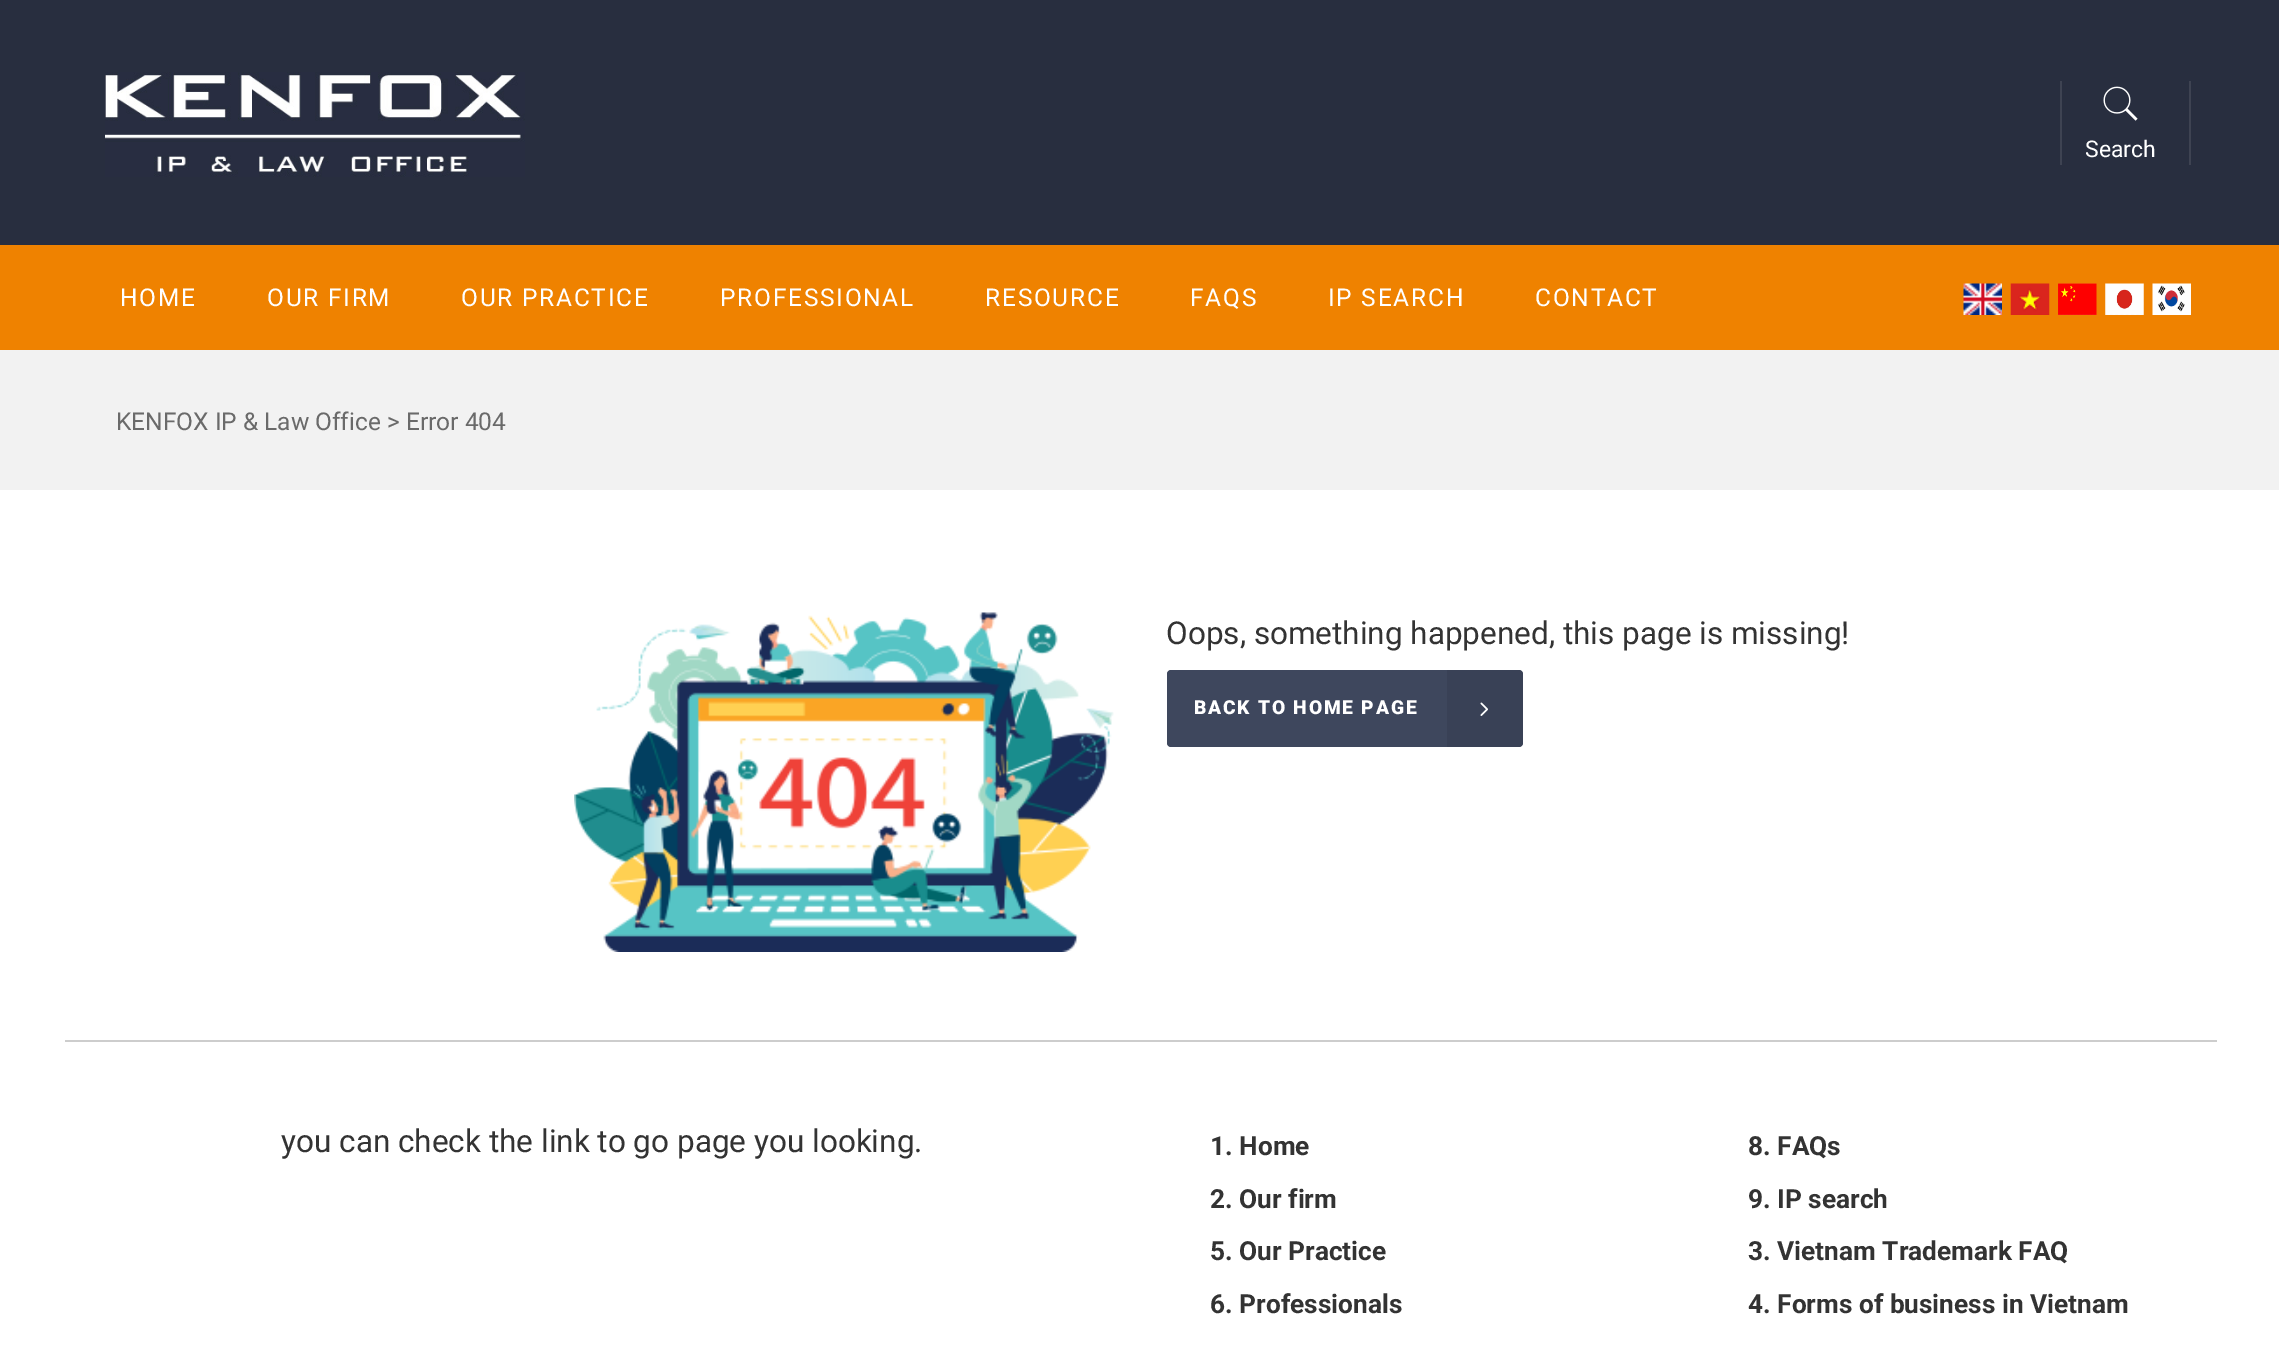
%!PS
<< /PageSize [2279 1358] /PageUsesTransparency true >> setpagedevice
/rgb { dup -16 bitshift 255 div exch dup -8 bitshift 255 and 255 div exch 255 and 255 div setrgbcolor } def
/font { [ exch dup neg 0 0 3 -1 roll 0 0 ] selectfont } def
/text { moveto show } def
/alpha { dup .setfillconstantalpha .setstrokeconstantalpha } def
/roundrect { 5 dict begin { /r /h /w /y /x } { exch def } forall
  x r add y moveto x w add y 2 copy h add r arct x w add y h add x 1 index r arct
  x y h add x y r arct x y 2 copy exch w add exch r arct closepath end } def
/picture { 5 dict begin { /h /w /y /x /name } { exch def } forall
  gsave x y translate w h scale
  w h 8 [w 0 0 h 0 0] name (r) file false 3 colorimage grestore end } def
0 .pushpdf14devicefilter
0 1358 translate 1 -1 scale
4 setmiterlimit
/s1 { /Roboto-Regular 23 font 16#FFFFFF rgb } def
/s2 { /Roboto-Regular 24.5 font 16#6A6A6A rgb } def
/s3 { /Roboto-Regular 31.5 font 16#333333 rgb } def
/s4 { /Roboto-Bold 26.25 font 16#333333 rgb } def
16#FFFFFF rgb
0 0 2279 1358 rectfill
16#282E3F rgb
0 0 2279 245 rectfill
(pic1.raw) 105 72 420 105 picture
16#3E4352 rgb
2060 81 2 84 rectfill
(pic2.raw) 2103 86 35 35 picture
s1
(Search) 2085 157 text
16#3E4352 rgb
2189 81 2 84 rectfill
16#EF8200 rgb
0 245 2279 105 rectfill
/Roboto-Regular 24.5 font
16#FFFFFF rgb
120 306 moveto 1.75 0 (HOME) ashow
267 306 moveto 1.75 0 (OUR FIRM) ashow
461 306 moveto 1.75 0 (OUR PRACTICE) ashow
720 306 moveto 1.75 0 (PROFESSIONAL) ashow
985 306 moveto 1.75 0 (RESOURCE) ashow
1190 306 moveto 1.75 0 (FAQS) ashow
1328 306 moveto 1.75 0 (IP SEARCH) ashow
1535 306 moveto 1.75 0 (CONTACT) ashow
(pic3.raw) 1963 283 39 32 picture
(pic4.raw) 2010 283 40 32 picture
(pic5.raw) 2058 283 39 32 picture
(pic6.raw) 2105 283 39 32 picture
(pic7.raw) 2152 283 39 32 picture
16#F2F2F2 rgb
0 350 2279 140 rectfill
s2
(KENFOX IP & Law Office > Error 404) 116 430 text
(pic8.raw) 574 612 540 340 picture
s3
(Oops, something happened, this page is missing!) 1166 644 text
16#3E475D rgb
1167 670 356 77 4 roundrect fill
/Roboto-Black 19.25 font
16#FFFFFF rgb
1194 714 moveto 1.75 0 (BACK TO HOME PAGE) ashow
0.08 alpha
16#000000 rgb
1447 670 moveto 1519 670 lineto 1521 670 1523 672 1523 674 curveto 1523 743 lineto 1523 745 1521 747 1519 747 curveto 1447 747 lineto closepath fill
1 alpha
(pic9.raw) 1480 702 8 14 picture
16#CDCDCD rgb
65 1040 2152 2 rectfill
s3
(you can check the link to go page you looking.) 281 1152 text
s4
(1. Home) 1210 1155 text
(8. FAQs) 1748 1155 text
(2. Our firm) 1210 1208 text
(9. IP search) 1748 1208 text
(5. Our Practice) 1210 1260 text
(3. Vietnam Trademark FAQ) 1748 1260 text
(6. Professionals) 1210 1313 text
(4. Forms of business in Vietnam) 1748 1313 text
.poppdf14devicefilter showpage
